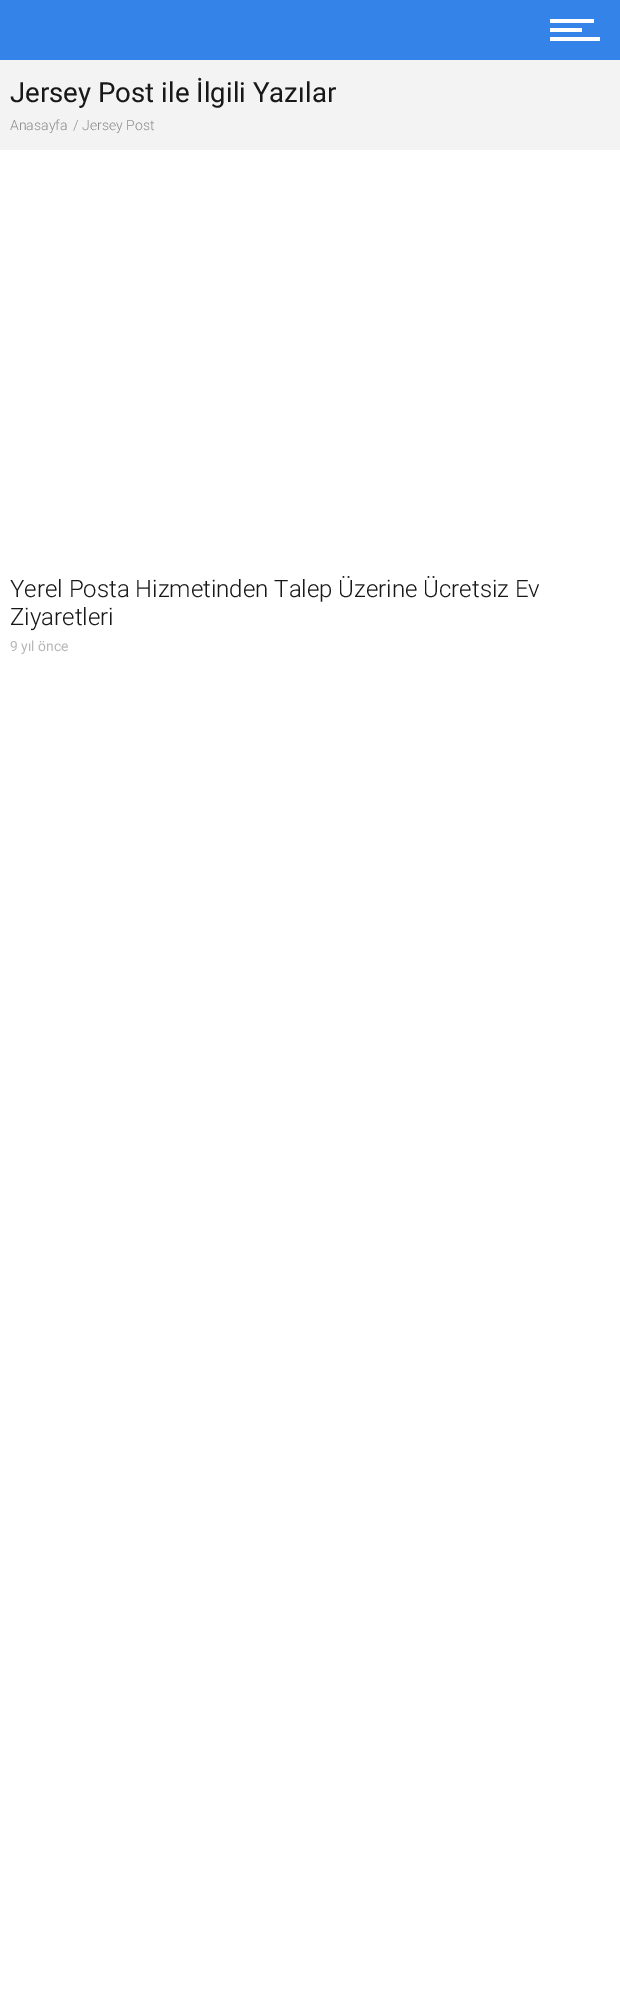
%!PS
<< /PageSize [620 2014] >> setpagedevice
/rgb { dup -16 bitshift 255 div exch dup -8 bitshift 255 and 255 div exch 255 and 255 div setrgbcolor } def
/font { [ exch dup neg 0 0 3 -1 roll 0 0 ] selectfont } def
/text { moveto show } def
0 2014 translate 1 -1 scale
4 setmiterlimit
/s1 { /Roboto-Regular 27.6 font 16#181818 rgb } def
/s2 { /Roboto-Light 14 font 16#8B8C8E rgb } def
/s3 { /Roboto-Light 24 font 16#181818 rgb } def
/s4 { /Roboto-Regular 14 font 16#B7B7B7 rgb } def
16#FFFFFF rgb
0 0 620 2014 rectfill
16#3483E8 rgb
0 0 620 60 rectfill
16#FFFFFF rgb
550 37 50 4 rectfill
550 28 32 4 rectfill
550 19 44 4 rectfill
16#F3F3F3 rgb
0 60 620 90 rectfill
s1
(Jersey Post ile İlgili Yazılar) 10 102 text
s2
(Anasayfa) 10 130 text
(/) 73 130 text
(Jersey Post) 82 130 text
s3
(Yerel Posta Hizmetinden Talep Üzerine Ücretsiz Ev) 10 597 text
(Ziyaretleri) 10 625 text
s4
(9 yıl önce) 10 651 text
showpage
